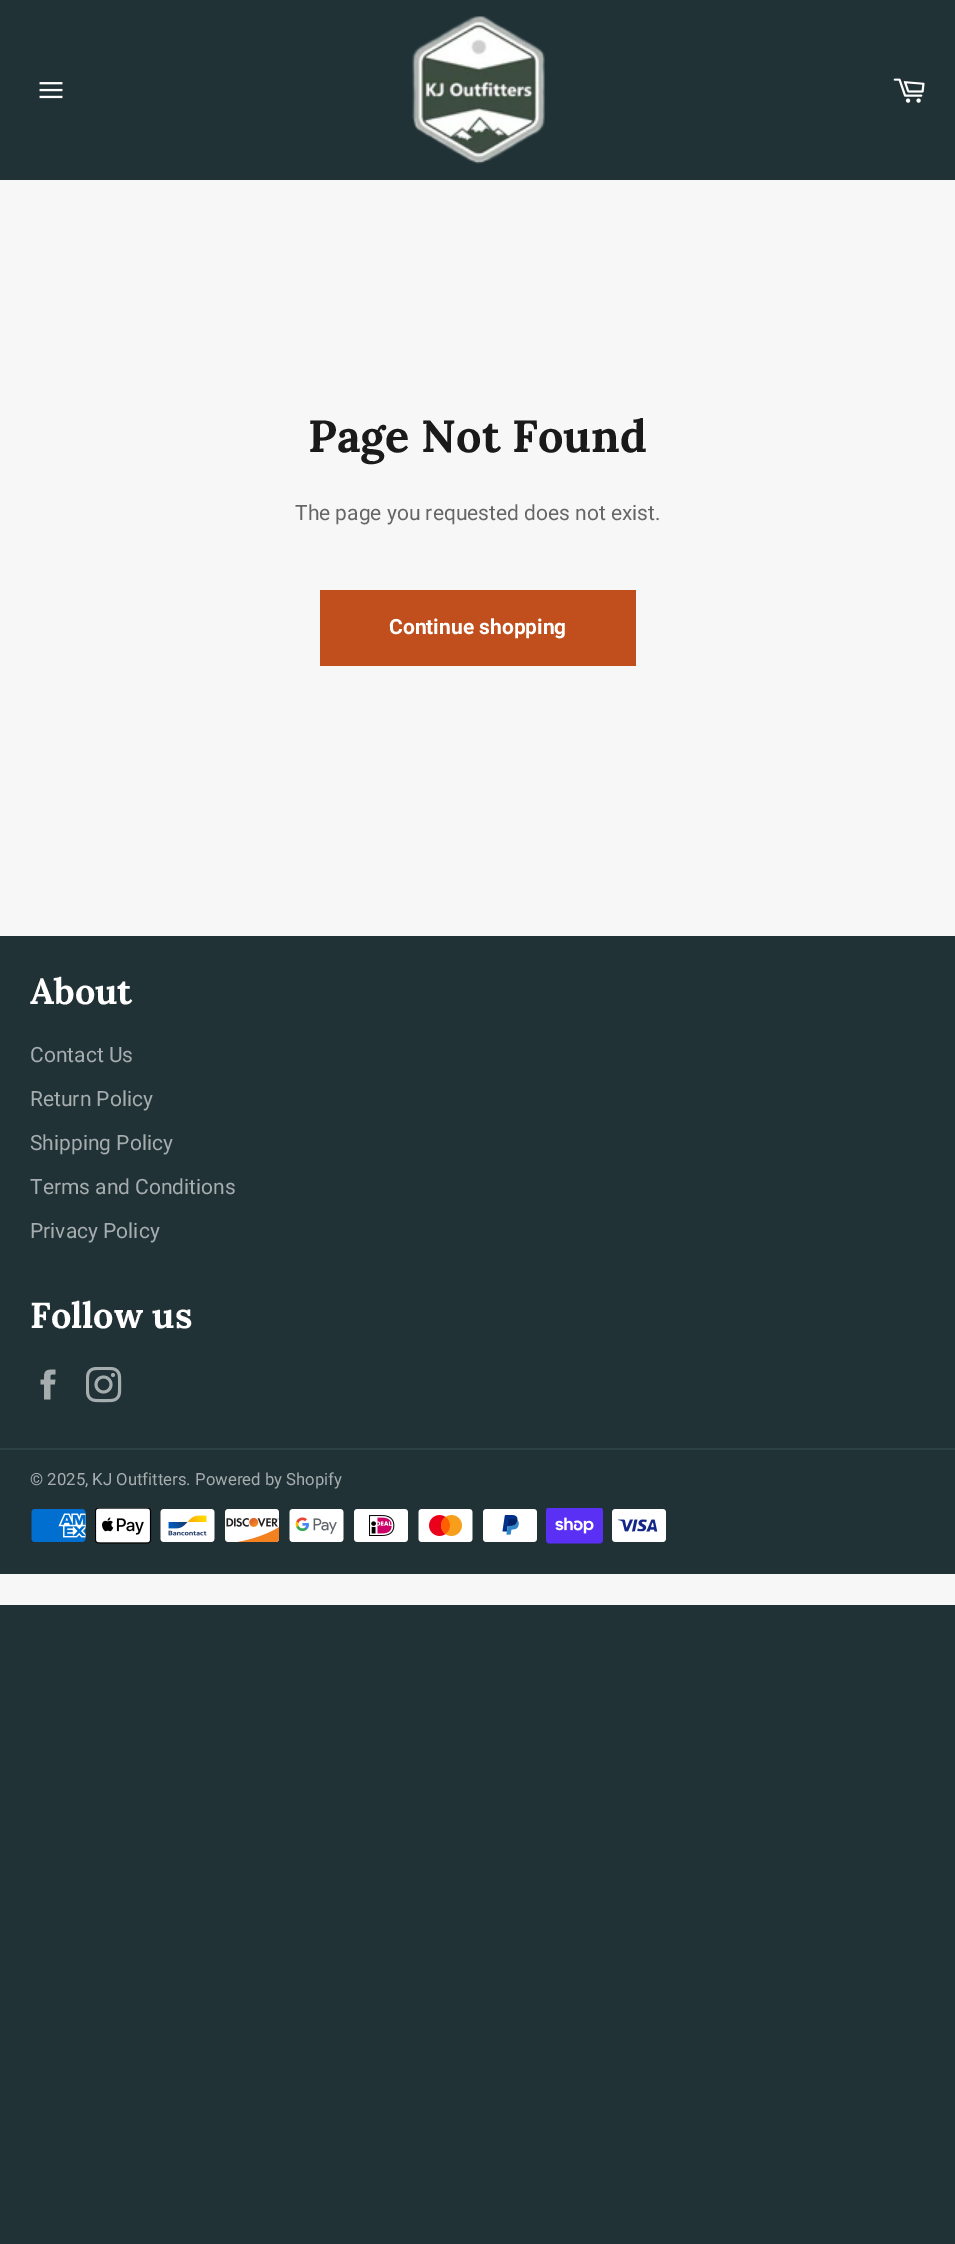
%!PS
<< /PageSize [955 2244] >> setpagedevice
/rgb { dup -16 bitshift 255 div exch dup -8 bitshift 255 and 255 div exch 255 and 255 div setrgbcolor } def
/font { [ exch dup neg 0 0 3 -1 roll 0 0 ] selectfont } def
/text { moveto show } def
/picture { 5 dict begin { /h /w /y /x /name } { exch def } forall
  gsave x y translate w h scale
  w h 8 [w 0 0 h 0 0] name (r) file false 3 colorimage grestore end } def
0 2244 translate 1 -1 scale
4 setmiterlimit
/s1 { /Lora-Bold 45 font 16#1A1A1A rgb } def
/s2 { /Roboto-Regular 21 font 16#666666 rgb } def
/s3 { /Roboto-Bold 21 font 16#FFFFFF rgb } def
/s4 { /Lora-Bold 36 font 16#FFFFFF rgb } def
/s5 { /Roboto-Regular 21 font 16#A6ADAF rgb } def
/s6 { /Roboto-Regular 16.75 font 16#A6ADAF rgb } def
16#213236 rgb
0 0 955 2244 rectfill
16#F7F7F7 rgb
0 180 955 1425 rectfill
(pic1.raw) 39 82 24 17 picture
(pic2.raw) 412 16 133 148 picture
(pic3.raw) 893 78 32 25 picture
s1
(Page Not Found) 308 452 text
s2
(The page you requested does not exist.) 295 520 text
16#C04F1D rgb
320 590 316 76 rectfill
s3
(Continue shopping) 389 634 text
16#213236 rgb
0 936 955 638 rectfill
s4
(About) 30 1004 text
s5
(Contact Us) 30 1062 text
(Return Policy) 30 1106 text
(Shipping Policy) 30 1150 text
(Terms and Conditions) 30 1194 text
(Privacy Policy) 30 1238 text
s4
(Follow us) 30 1328 text
(pic4.raw) 40 1369 16 31 picture
(pic5.raw) 86 1367 36 36 picture
16#2B4146 rgb
0 1448 955 2 rectfill
s6
(© 2025, KJ Outfitters. Powered by Shopify) 30 1485 text
(pic6.raw) 31 1509 55 33 picture
(pic7.raw) 95 1508 57 36 picture
(pic8.raw) 160 1509 55 33 picture
(pic9.raw) 225 1509 55 33 picture
(pic10.raw) 289 1509 55 33 picture
(pic11.raw) 354 1509 54 33 picture
(pic12.raw) 418 1509 55 33 picture
(pic13.raw) 483 1509 54 33 picture
(pic14.raw) 546 1508 57 36 picture
(pic15.raw) 612 1509 54 33 picture
showpage
